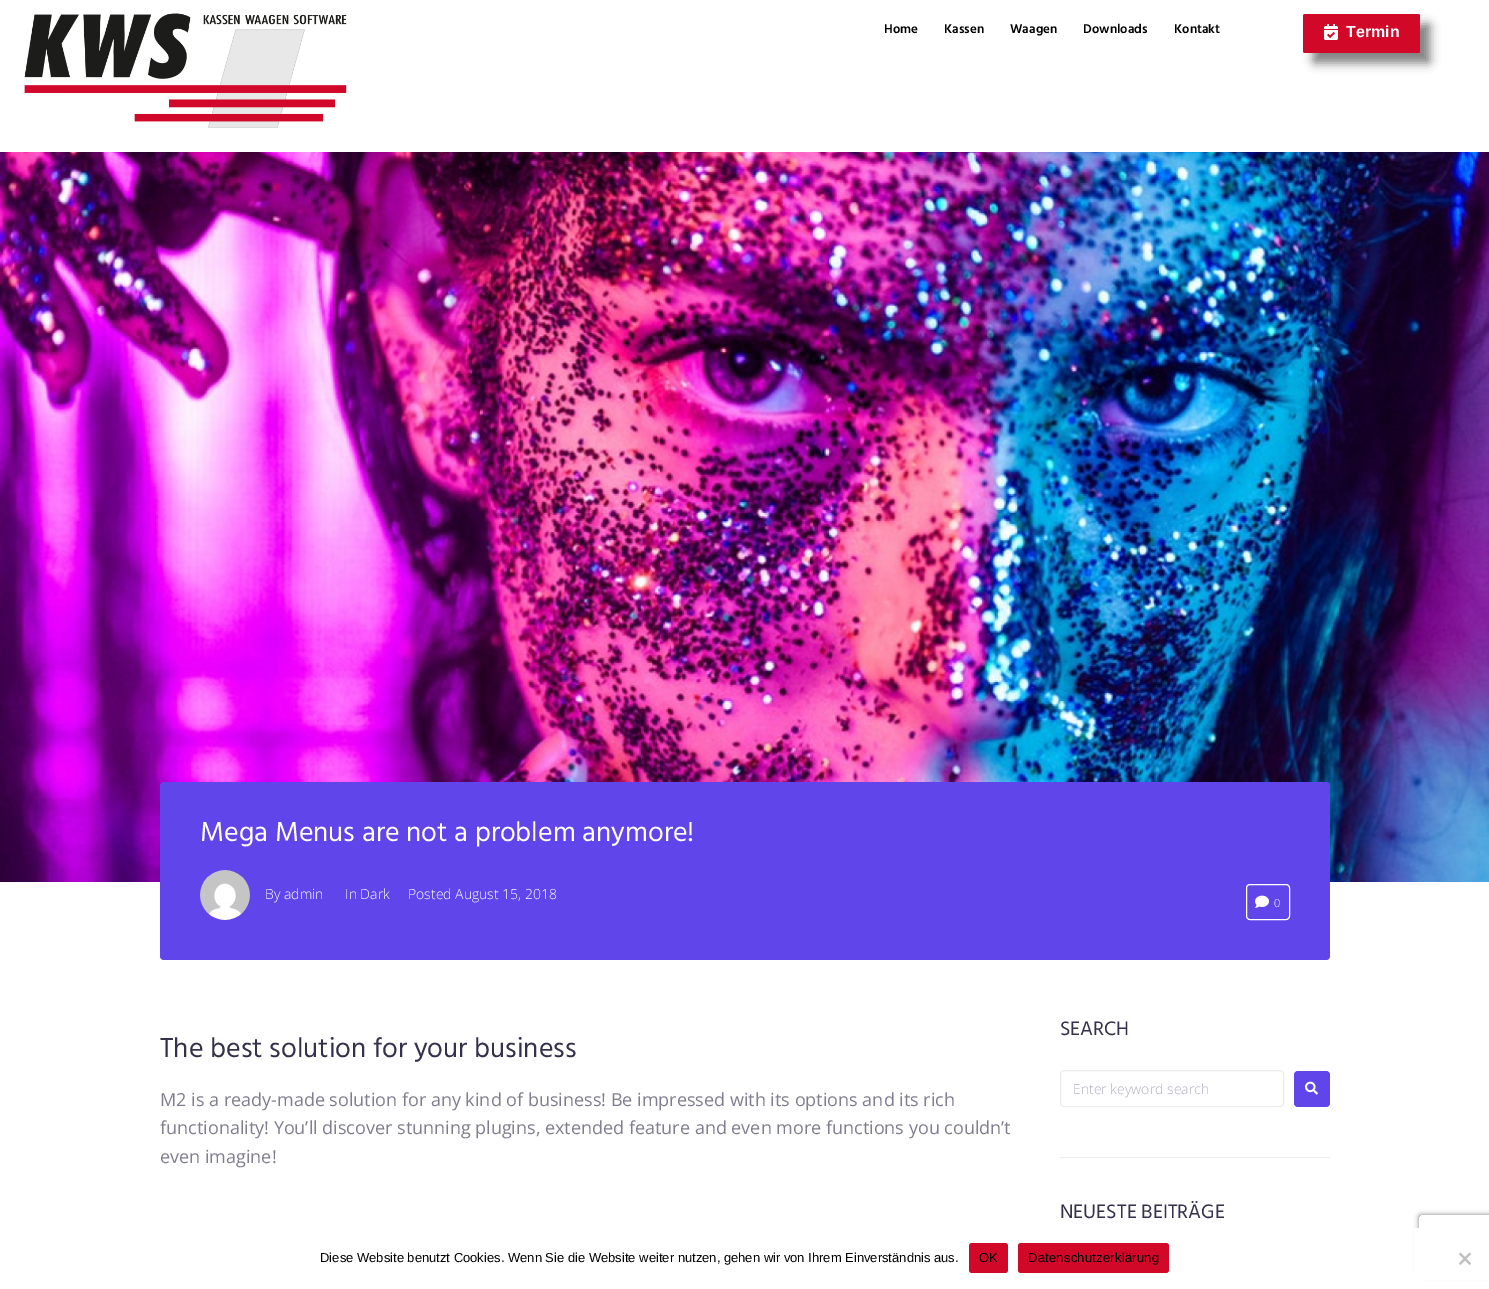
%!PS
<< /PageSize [1489 1289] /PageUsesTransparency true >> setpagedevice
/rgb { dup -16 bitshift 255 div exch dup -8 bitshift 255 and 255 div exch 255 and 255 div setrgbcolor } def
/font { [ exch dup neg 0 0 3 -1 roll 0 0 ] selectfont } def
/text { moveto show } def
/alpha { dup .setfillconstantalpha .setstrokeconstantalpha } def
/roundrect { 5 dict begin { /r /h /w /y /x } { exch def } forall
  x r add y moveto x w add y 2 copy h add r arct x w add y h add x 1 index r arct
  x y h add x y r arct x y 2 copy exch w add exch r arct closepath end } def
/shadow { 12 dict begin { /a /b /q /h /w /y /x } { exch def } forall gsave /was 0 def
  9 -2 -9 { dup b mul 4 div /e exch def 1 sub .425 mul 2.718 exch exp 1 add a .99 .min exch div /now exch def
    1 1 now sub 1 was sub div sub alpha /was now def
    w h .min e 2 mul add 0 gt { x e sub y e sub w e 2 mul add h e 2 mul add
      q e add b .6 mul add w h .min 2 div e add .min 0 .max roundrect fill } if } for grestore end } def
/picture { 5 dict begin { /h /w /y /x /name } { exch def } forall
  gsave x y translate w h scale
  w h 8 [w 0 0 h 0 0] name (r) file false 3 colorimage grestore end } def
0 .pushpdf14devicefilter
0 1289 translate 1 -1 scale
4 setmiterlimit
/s1 { /Hind-SemiBold 13 font 16#000000 rgb } def
/s2 { /LiberationSans-Bold 16 font 16#FFFFFF rgb } def
/s3 { /Hind-Regular 28 font 16#FFFFFF rgb } def
/s4 { /OpenSans-Light 14 font 16#FFFFFF rgb } def
/s5 { /OpenSans-Light 11 font 16#FFFFFF rgb } def
/s6 { /Hind-Regular 28 font 16#34314B rgb } def
/s7 { /OpenSans-Regular 18 font 16#7F7D8E rgb } def
/s8 { /Hind-Regular 20 font 16#34314B rgb } def
/s9 { /OpenSans-Light 14 font 16#B0AEBE rgb } def
/s10 { /LiberationSans-Regular 13 font 16#000000 rgb } def
16#FFFFFF rgb
0 0 1489 1289 rectfill
(pic1.raw) 24 13 323 115 picture
s1
(Home) 884 33 text
(Kassen) 944 33 text
(Waagen) 1010 33 text
(Downloads) 1083 33 text
(Kontakt) 1174 33 text
1313 24 117 39 2 5 0.5 shadow
16#D20829 rgb
1303 14 117 39 2 roundrect fill
(pic2.raw) 1324 24 14 16 picture
s2
(Termin) 1346 37 text
(pic3.raw) 0 152 1489 730 picture
16#5F45EA rgb
160 782 1170 178 4 roundrect fill
s3
(Mega Menus are not a problem anymore!) 200 841 text
(pic4.raw) 200 870 50 50 picture
s4
(By admin) 265 899 text
(In Dark) 345 899 text
(Posted August 15, 2018) 408 899 text
1246.5 884.5 43 35 3.5 roundrect stroke
(pic5.raw) 1255 895 14 13 picture
s5
(0) 1274 907 text
s6
(The best solution for your business) 160 1057 text
s7
(M2 is a ready-made solution for any kind of business! Be impressed with its options and its rich) 160 1106 text
(functionality! You’ll discover stunning plugins, extended feature and even more functions you couldn’t) 160 1134 text
(even imagine!) 160 1163 text
s8
(SEARCH) 1060 1035 text
16#EBECED rgb
1060.5 1070.5 223 36 3.5 roundrect stroke
s9
(Enter keyword search) 1073 1094 text
16#5F45EA rgb
1294 1071 36 36 4 roundrect fill
(pic6.raw) 1305 1081 13 14 picture
16#EBECED rgb
1060 1157 270 1 rectfill
s8
(NEUESTE BEITRÄGE) 1060 1218 text
gsave
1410 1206 moveto 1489 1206 lineto 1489 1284 lineto 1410 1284 lineto closepath 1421 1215 moveto 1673 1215 lineto 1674 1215 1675 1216 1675 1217 curveto 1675 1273 lineto 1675 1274 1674 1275 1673 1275 curveto 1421 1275 lineto 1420 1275 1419 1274 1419 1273 curveto 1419 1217 lineto 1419 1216 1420 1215 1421 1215 curveto closepath eoclip newpath
16#808080 rgb
1419 1215 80 60 2 2.5 1 shadow
grestore
16#FFFFFF rgb
1414 1228 75 52 rectfill
s10
(Diese Website benutzt Cookies. Wenn Sie die Website weiter nutzen, gehen wir von Ihrem Einverständnis aus.) 320 1262 text
16#D20829 rgb
969 1243 39 30 3 roundrect fill
16#000000 rgb
979 1262 moveto 0.25 0 (OK) ashow
16#D20829 rgb
1018 1243 151 30 3 roundrect fill
16#000000 rgb
1028 1262 moveto 0.25 0 (Datenschutzerklärung) ashow
16#C0C0C0 rgb
1469.5 1252.5 moveto 1471 1254 lineto 1460.5 1265 lineto 1459 1263.5 lineto closepath fill
1459 1254 moveto 1460.5 1252.5 lineto 1471 1263.5 lineto 1469.5 1265 lineto closepath fill
.poppdf14devicefilter showpage
